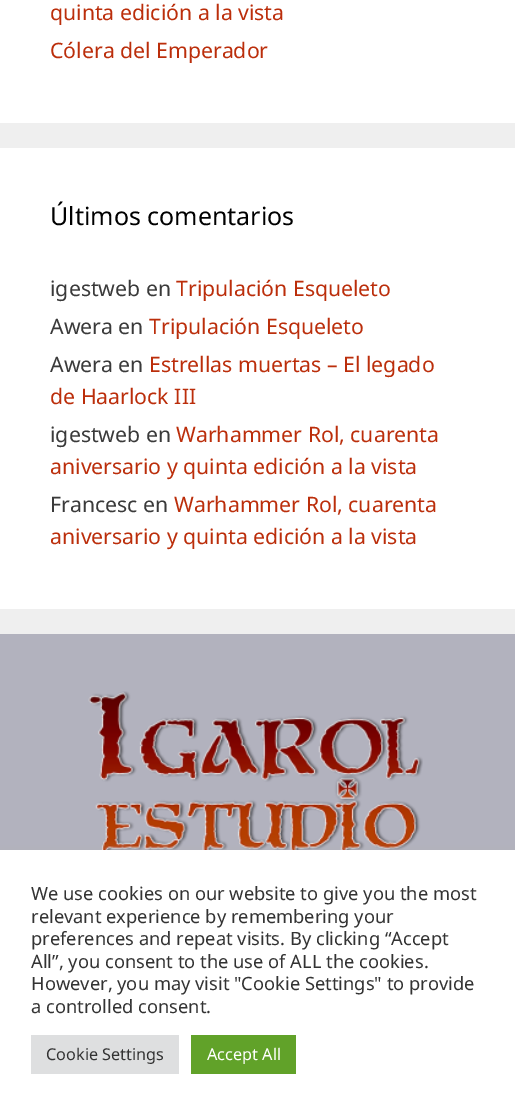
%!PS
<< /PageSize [515 1111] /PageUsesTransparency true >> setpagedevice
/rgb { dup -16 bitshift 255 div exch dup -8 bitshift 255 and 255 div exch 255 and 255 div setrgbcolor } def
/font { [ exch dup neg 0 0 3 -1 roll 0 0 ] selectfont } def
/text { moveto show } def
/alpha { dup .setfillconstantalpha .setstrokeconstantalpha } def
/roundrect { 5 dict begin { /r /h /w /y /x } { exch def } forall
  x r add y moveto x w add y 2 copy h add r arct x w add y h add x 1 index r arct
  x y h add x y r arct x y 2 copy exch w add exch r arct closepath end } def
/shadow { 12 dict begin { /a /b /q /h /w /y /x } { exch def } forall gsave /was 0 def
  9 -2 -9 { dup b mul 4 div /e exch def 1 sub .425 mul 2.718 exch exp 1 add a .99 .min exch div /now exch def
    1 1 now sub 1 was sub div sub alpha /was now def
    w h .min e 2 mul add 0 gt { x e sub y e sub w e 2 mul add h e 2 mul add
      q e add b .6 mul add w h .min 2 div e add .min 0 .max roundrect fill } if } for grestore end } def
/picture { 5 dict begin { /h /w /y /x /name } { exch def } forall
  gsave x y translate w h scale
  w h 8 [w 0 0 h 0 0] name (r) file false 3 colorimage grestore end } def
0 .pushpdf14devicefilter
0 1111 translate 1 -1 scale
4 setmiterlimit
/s1 { /NotoSans-Regular 21.25 font 16#BB2E0B rgb } def
/s2 { /NotoSans-Regular 25 font 16#000000 rgb } def
/s3 { /NotoSans-Regular 21.25 font 16#3A3A3A rgb } def
/s4 { /NotoSans-Regular 18.3 font 16#333333 rgb } def
/s5 { /NotoSans-Regular 16.25 font 16#333333 rgb } def
/s6 { /NotoSans-Regular 16.25 font 16#FFFFFF rgb } def
16#EFEFEF rgb
0 0 515 1111 rectfill
16#FFFFFF rgb
0 0 515 123 rectfill
s1
(quinta edición a la vista) 50 20 text
(Cólera del Emperador) 50 58 text
16#FFFFFF rgb
0 148 515 461 rectfill
s2
(Últimos comentarios) 50 225 text
s3
(igestweb en) 50 296 text
s1
(Tripulación Esqueleto) 176 296 text
s3
(Awera en) 50 334 text
s1
(Tripulación Esqueleto) 149 334 text
s3
(Awera en) 50 372 text
s1
(Estrellas muertas – El legado) 149 372 text
(de Haarlock III) 50 404 text
s3
(igestweb en) 50 442 text
s1
(Warhammer Rol, cuarenta) 176 442 text
(aniversario y quinta edición a la vista) 50 474 text
s3
(Francesc en) 50 512 text
s1
(Warhammer Rol, cuarenta) 174 512 text
(aniversario y quinta edición a la vista) 50 544 text
16#B2B2BE rgb
0 634 515 216 rectfill
(pic1.raw) 88 691 335 159 picture
16#ACABAB rgb
0 849 515 261 0 6 0.3 shadow
16#FFFFFF rgb
0 850 515 261 rectfill
s4
(We use cookies on our website to give you the most) 31 900 text
(relevant experience by remembering your) 31 923 text
(preferences and repeat visits. By clicking “Accept) 31 945 text
(All”, you consent to the use of ALL the cookies.) 31 968 text
(However, you may visit "Cookie Settings" to provide) 31 990 text
(a controlled consent.) 31 1013 text
16#DEDFE0 rgb
31 1035 148 39 rectfill
s5
(Cookie Settings) 46 1060 text
16#61A229 rgb
191 1035 105 39 rectfill
s6
(Accept All) 207 1060 text
.poppdf14devicefilter showpage
